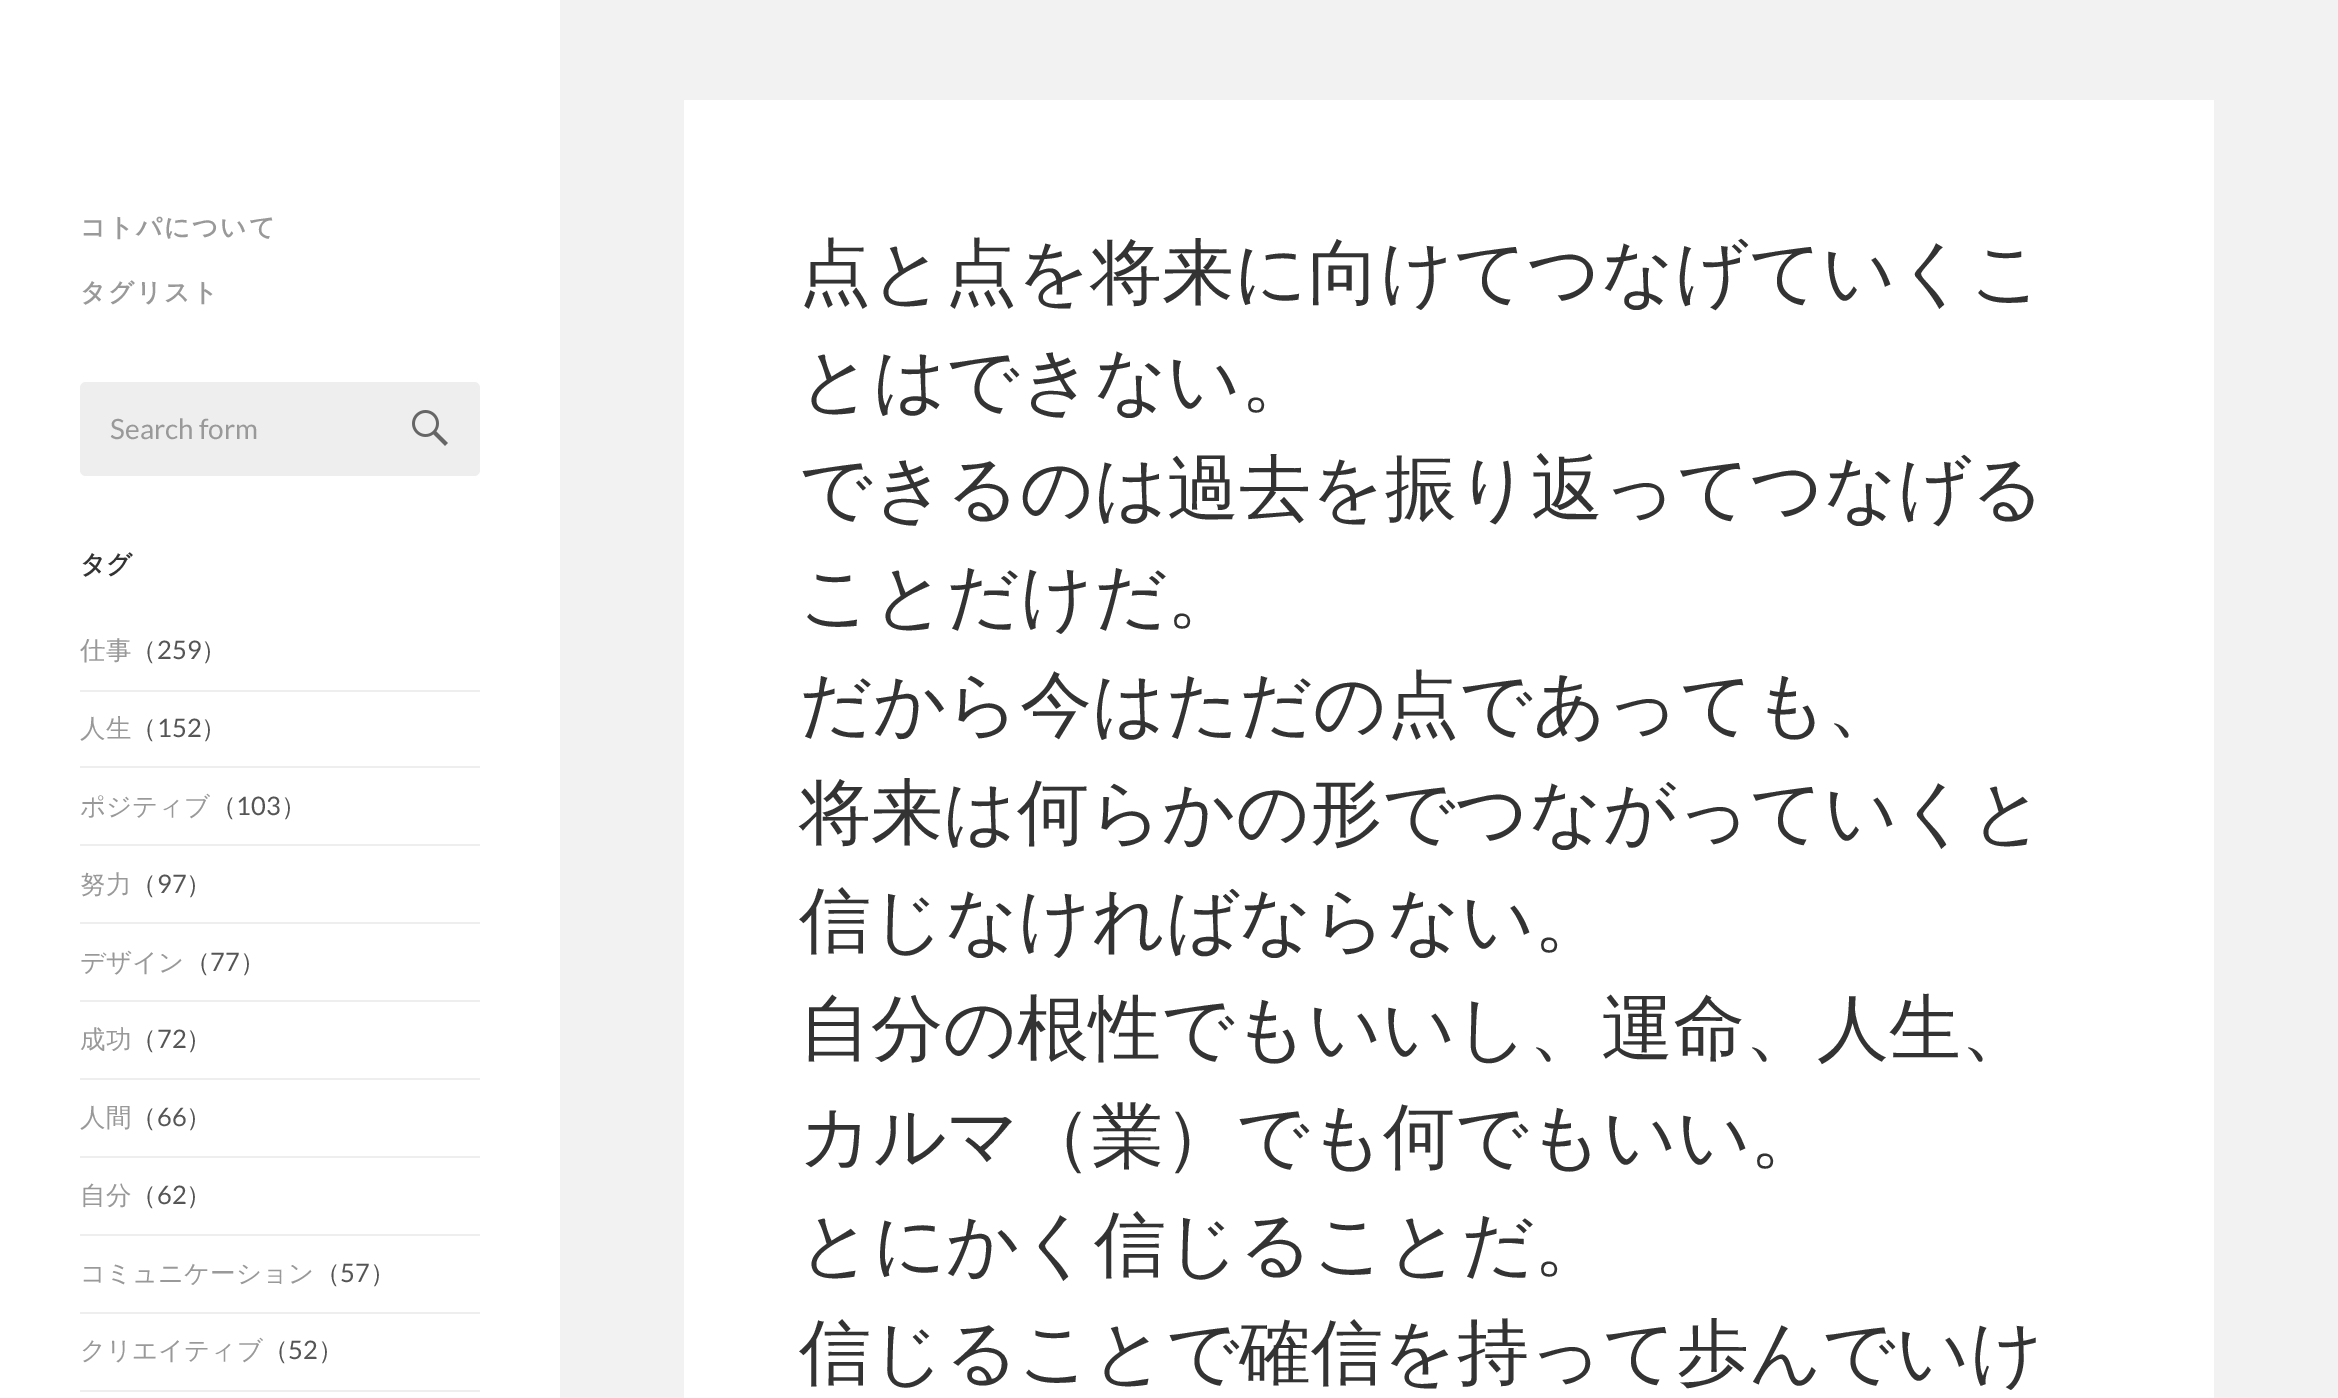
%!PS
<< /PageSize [2338 1398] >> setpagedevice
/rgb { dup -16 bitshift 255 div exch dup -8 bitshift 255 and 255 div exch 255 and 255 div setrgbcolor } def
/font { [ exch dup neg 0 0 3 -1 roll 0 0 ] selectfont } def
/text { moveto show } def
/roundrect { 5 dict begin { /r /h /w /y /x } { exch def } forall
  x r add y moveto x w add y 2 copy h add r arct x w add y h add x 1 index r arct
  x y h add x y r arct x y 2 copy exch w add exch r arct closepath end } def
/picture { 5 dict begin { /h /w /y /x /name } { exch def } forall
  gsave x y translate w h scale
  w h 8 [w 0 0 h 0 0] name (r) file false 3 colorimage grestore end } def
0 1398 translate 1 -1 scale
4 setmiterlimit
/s1 { /Lato-Regular 28 font 16#999999 rgb } def
/s2 { /WenQuanYiZenHei-Bold 25.5 font 16#333333 rgb } def
/s3 { /WenQuanYiZenHei-Medium 25.5 font 16#999999 rgb } def
/s4 { /WenQuanYiZenHei-Medium 25.5 font 16#555555 rgb } def
/s5 { /Lato-Regular 25.5 font 16#555555 rgb } def
/s6 { /WenQuanYiZenHei-Medium 72 font 16#333333 rgb } def
16#F2F2F2 rgb
0 0 2338 1398 rectfill
16#FFFFFF rgb
0 0 560 1398 rectfill
/WenQuanYiZenHei-Bold 25.5 font
16#999999 rgb
80 236 moveto 2 0 (コトパについて) ashow
80 301 moveto 2 0 (タグリスト) ashow
16#EEEEEE rgb
80 382 400 94 6 roundrect fill
s1
(Search form) 110 439 text
(pic1.raw) 412 410 36 36 picture
s2
(タグ) 80 573 text
16#EEEEEE rgb
80 690 400 2 rectfill
s3
(仕事) 80 659 text
s4
(（) 131 659 text
s5
(259) 157 659 text
s4
(）) 201 659 text
16#EEEEEE rgb
80 766 400 2 rectfill
s3
(人生) 80 737 text
s4
(（) 131 737 text
s5
(152) 157 737 text
s4
(）) 201 737 text
16#EEEEEE rgb
80 844 400 2 rectfill
s3
(ポジティブ) 80 815 text
s4
(（) 211 815 text
s5
(103) 236 815 text
s4
(）) 281 815 text
16#EEEEEE rgb
80 922 400 2 rectfill
s3
(努力) 80 893 text
s4
(（) 131 893 text
s5
(97) 157 893 text
s4
(）) 186 893 text
16#EEEEEE rgb
80 1000 400 2 rectfill
s3
(デザイン) 80 971 text
s4
(（) 185 971 text
s5
(77) 210 971 text
s4
(）) 240 971 text
16#EEEEEE rgb
80 1078 400 2 rectfill
s3
(成功) 80 1048 text
s4
(（) 131 1048 text
s5
(72) 157 1048 text
s4
(）) 186 1048 text
16#EEEEEE rgb
80 1156 400 2 rectfill
s3
(人間) 80 1126 text
s4
(（) 131 1126 text
s5
(66) 157 1126 text
s4
(）) 186 1126 text
16#EEEEEE rgb
80 1234 400 2 rectfill
s3
(自分) 80 1204 text
s4
(（) 131 1204 text
s5
(62) 157 1204 text
s4
(）) 186 1204 text
16#EEEEEE rgb
80 1312 400 2 rectfill
s3
(コミュニケーション) 80 1282 text
s4
(（) 315 1282 text
s5
(57) 340 1282 text
s4
(）) 370 1282 text
16#EEEEEE rgb
80 1390 400 2 rectfill
s3
(クリエイティブ) 80 1359 text
s4
(（) 263 1359 text
s5
(52) 288 1359 text
s4
(）) 318 1359 text
16#FFFFFF rgb
684 100 1530 1298 rectfill
s6
(点と点を将来に向けてつなげていくこ) 799 297 text
(とはできない。) 799 405 text
(できるのは過去を振り返ってつなげる) 799 513 text
(ことだけだ。) 799 621 text
(だから今はただの点であっても、) 799 729 text
(将来は何らかの形でつながっていくと) 799 837 text
(信じなければならない。) 799 945 text
(自分の根性でもいいし、運命、人生、) 799 1053 text
(カルマ（業）でも何でもいい。) 799 1161 text
(とにかく信じることだ。) 799 1269 text
(信じることで確信を持って歩んでいけ) 799 1377 text
showpage
